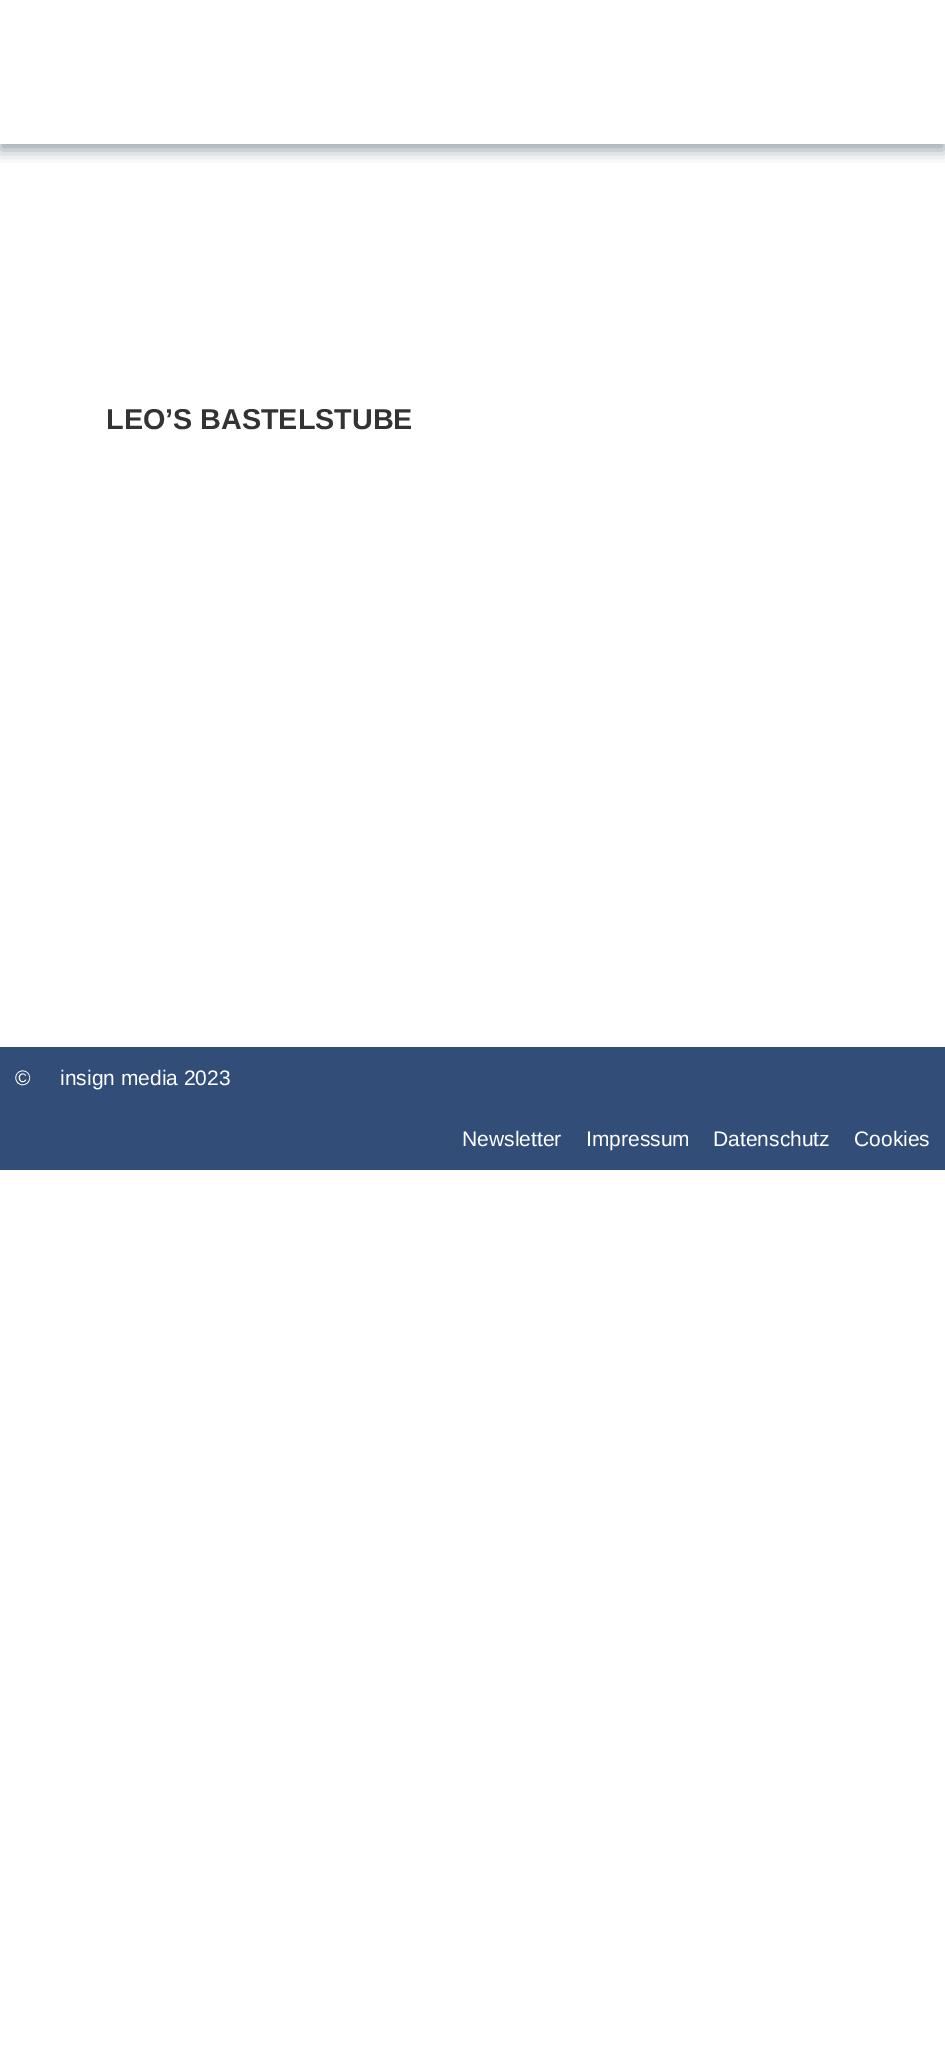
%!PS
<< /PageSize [945 2050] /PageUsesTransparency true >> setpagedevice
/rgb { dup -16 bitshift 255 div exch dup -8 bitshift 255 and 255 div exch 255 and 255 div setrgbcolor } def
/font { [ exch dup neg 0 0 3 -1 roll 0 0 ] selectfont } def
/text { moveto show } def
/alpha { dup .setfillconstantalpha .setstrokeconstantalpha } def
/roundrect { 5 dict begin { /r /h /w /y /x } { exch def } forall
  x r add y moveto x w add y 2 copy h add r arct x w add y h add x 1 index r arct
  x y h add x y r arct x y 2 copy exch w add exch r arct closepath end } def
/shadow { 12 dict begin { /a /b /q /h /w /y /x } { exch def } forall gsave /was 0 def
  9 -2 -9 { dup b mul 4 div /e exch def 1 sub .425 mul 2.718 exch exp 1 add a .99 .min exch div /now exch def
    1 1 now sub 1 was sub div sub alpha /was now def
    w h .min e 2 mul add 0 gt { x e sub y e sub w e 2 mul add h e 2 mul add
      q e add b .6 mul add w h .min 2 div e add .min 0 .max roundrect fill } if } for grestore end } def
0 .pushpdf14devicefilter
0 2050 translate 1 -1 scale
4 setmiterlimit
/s1 { /LiberationSans-Bold 28.75 font 16#333333 rgb } def
/s2 { /LiberationSans-Regular 21 font 16#FFFFFF rgb } def
16#FFFFFF rgb
0 0 945 2050 rectfill
gsave
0 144 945 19 rectclip
16#2F4858 rgb
0 6 945 144 0 7.5 0.5 shadow
grestore
s1
(LEO’S BASTELSTUBE) 106 429 text
16#334D79 rgb
0 1047 945 123 rectfill
s2
(©) 15 1085 text
(insign media 2023) 60 1085 text
(Newsletter) 462 1146 text
(Impressum) 586 1146 text
(Datenschutz) 713 1146 text
(Cookies) 854 1146 text
.poppdf14devicefilter showpage
